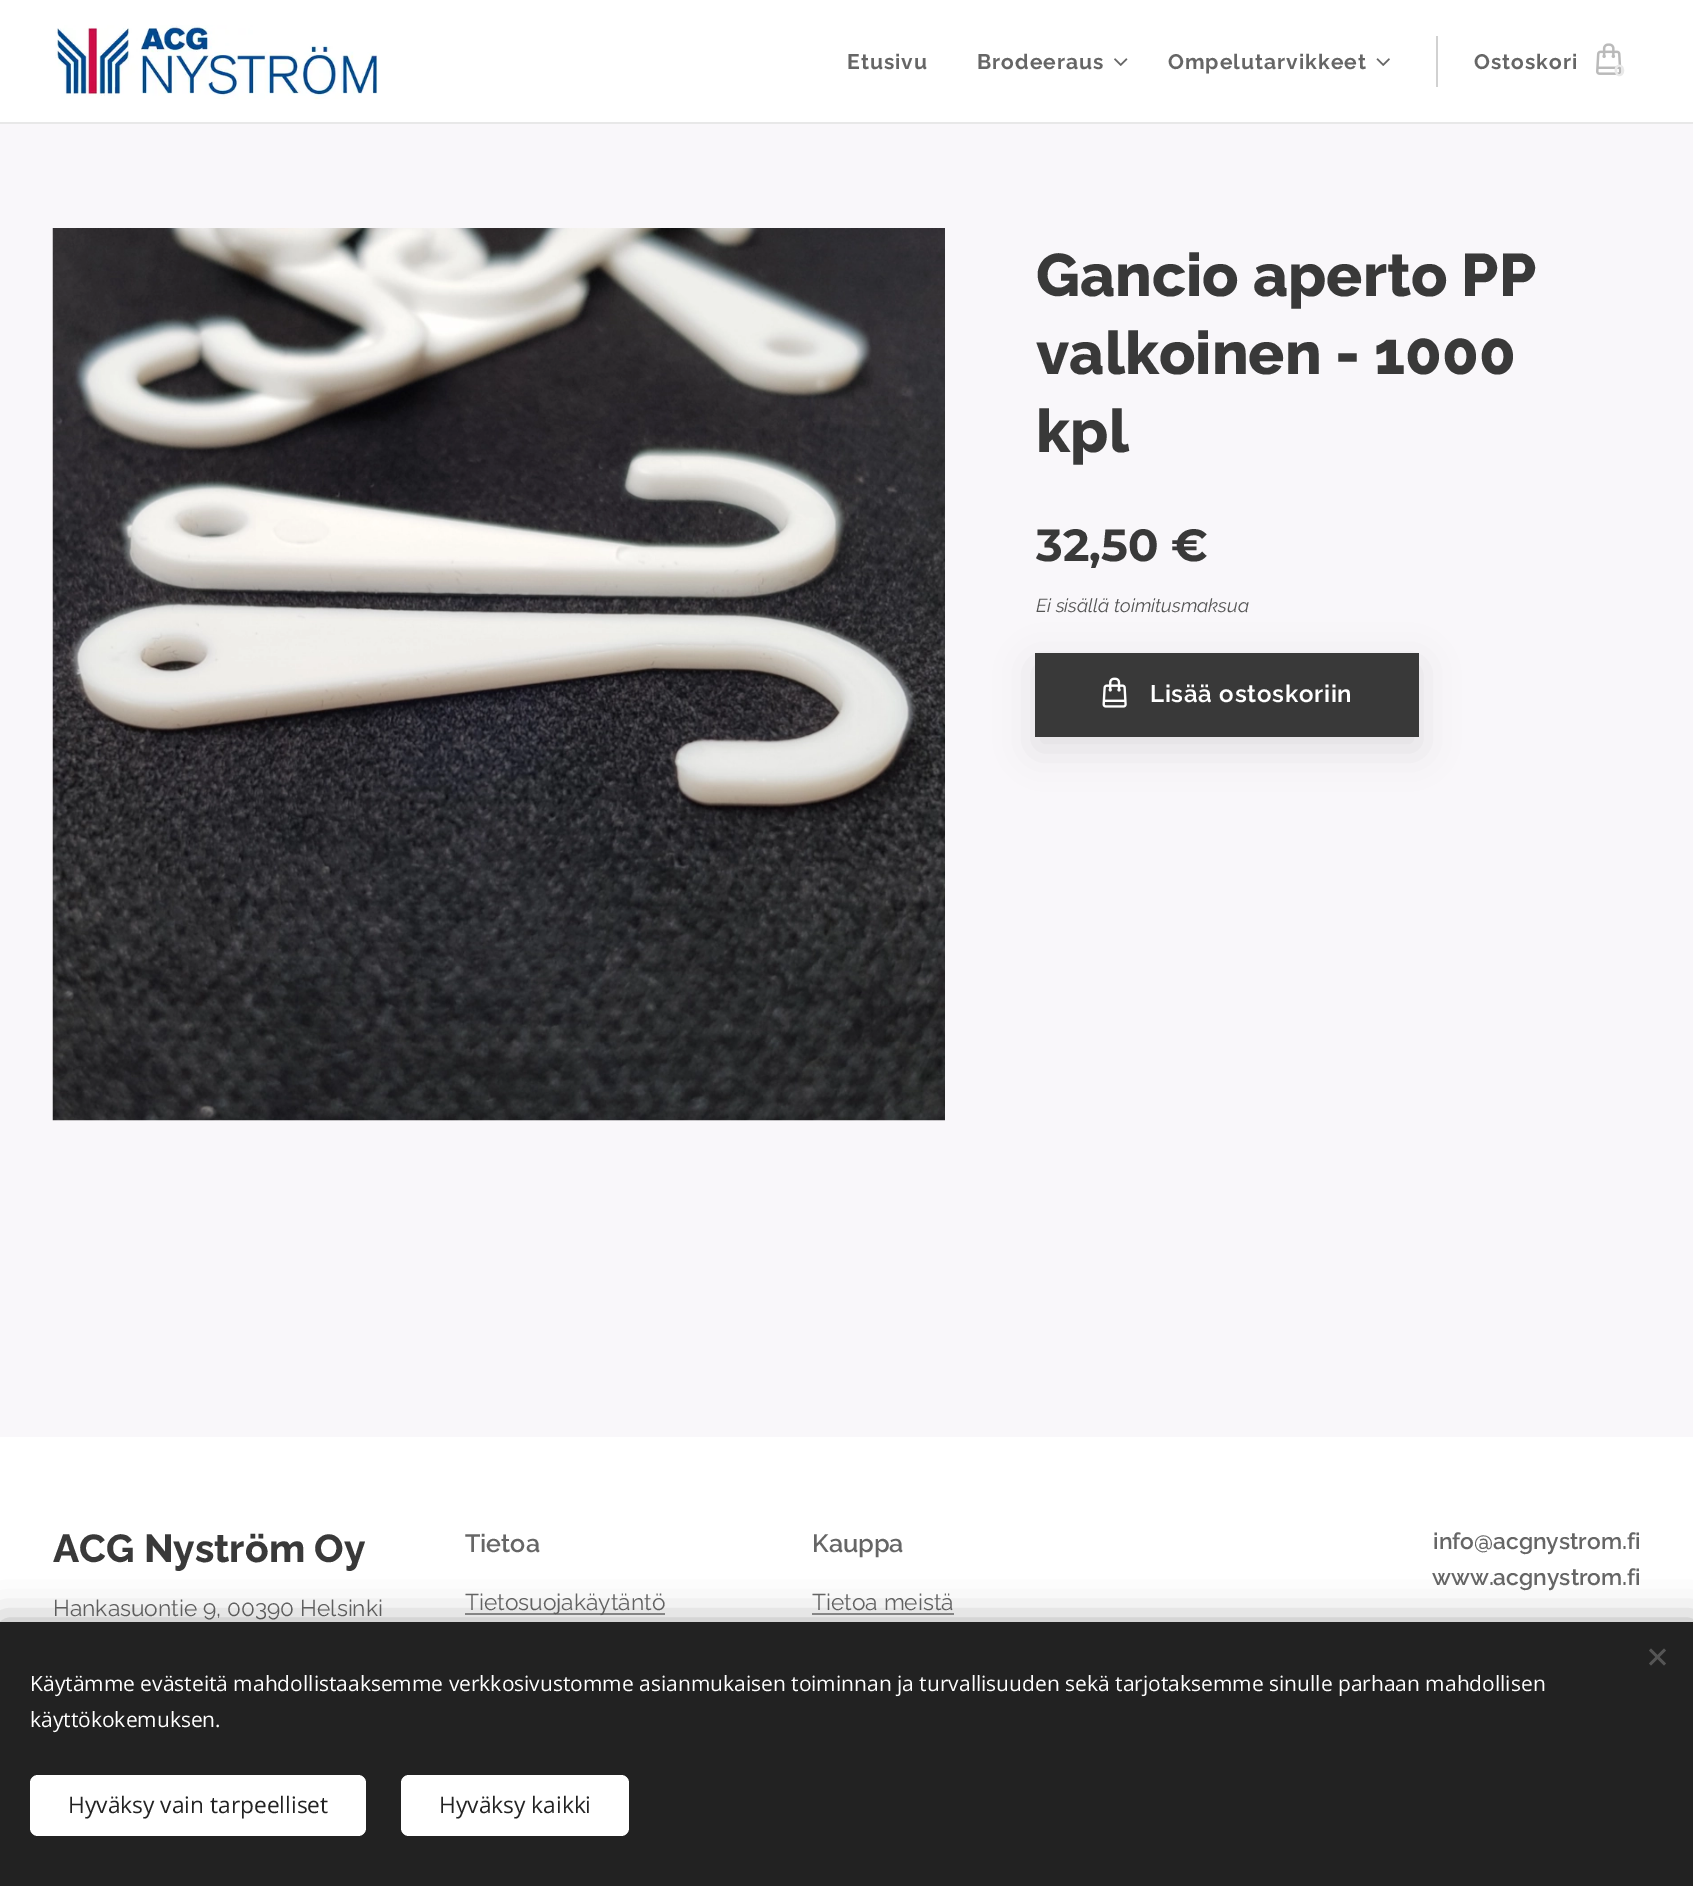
%!PS
<< /PageSize [1693 1886] /PageUsesTransparency true >> setpagedevice
/rgb { dup -16 bitshift 255 div exch dup -8 bitshift 255 and 255 div exch 255 and 255 div setrgbcolor } def
/font { [ exch dup neg 0 0 3 -1 roll 0 0 ] selectfont } def
/text { moveto show } def
/alpha { dup .setfillconstantalpha .setstrokeconstantalpha } def
/roundrect { 5 dict begin { /r /h /w /y /x } { exch def } forall
  x r add y moveto x w add y 2 copy h add r arct x w add y h add x 1 index r arct
  x y h add x y r arct x y 2 copy exch w add exch r arct closepath end } def
/shadow { 12 dict begin { /a /b /q /h /w /y /x } { exch def } forall gsave /was 0 def
  9 -2 -9 { dup b mul 4 div /e exch def 1 sub .425 mul 2.718 exch exp 1 add a .99 .min exch div /now exch def
    1 1 now sub 1 was sub div sub alpha /was now def
    w h .min e 2 mul add 0 gt { x e sub y e sub w e 2 mul add h e 2 mul add
      q e add b .6 mul add w h .min 2 div e add .min 0 .max roundrect fill } if } for grestore end } def
/picture { 5 dict begin { /h /w /y /x /name } { exch def } forall
  gsave x y translate w h scale
  w h 8 [w 0 0 h 0 0] name (r) file false 3 colorimage grestore end } def
0 .pushpdf14devicefilter
0 1886 translate 1 -1 scale
4 setmiterlimit
/s1 { /Montserrat-Bold 16 font 16#E9E9E9 rgb } def
/s2 { /Raleway-ExtraBold 60 font 16#393939 rgb } def
/s3 { /Montserrat-Bold 45 font 16#393939 rgb } def
/s4 { /Raleway-Italic 18.75 font 16#555555 rgb } def
/s5 { /Raleway-Bold 39 font 16#393939 rgb } def
/s6 { /Raleway-Regular 22.75 font 16#666666 rgb } def
/s7 { /Raleway-SemiBold 25 font 16#666666 rgb } def
/s8 { /Raleway-SemiBold 22.75 font 16#666666 rgb } def
/s9 { /OpenSans-Regular 21 font 16#FFFFFF rgb } def
/s10 { /OpenSans-Regular 22.75 font 16#222222 rgb } def
16#FFFFFF rgb
0 0 1693 1886 rectfill
(pic1.raw) 55 25 323 75 picture
/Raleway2-Bold 21 font
16#666666 rgb
847 69 moveto 1 0 (Etusivu) ashow
977 69 moveto 1 0 (Brodeeraus) ashow
(pic2.raw) 1114 58 14 8 picture
1168 69 moveto 1 0 (Ompelutarvikkeet) ashow
(pic3.raw) 1376 58 14 8 picture
16#D1D1D1 rgb
1436 36 2 51 rectfill
16#666666 rgb
1474 69 moveto 1 0 (Ostoskori) ashow
(pic4.raw) 1596 43 26 32 picture
s1
(0) 1614 76 text
16#E8E8E8 rgb
0 122 1693 2 rectfill
16#F9F7FA rgb
0 124 1693 1313 rectfill
(pic5.raw) 52 228 893 893 picture
s2
(Gancio aperto PP) 1036 296 text
(valkoinen - 1000) 1036 374 text
(kpl) 1036 452 text
s3
(32,50 €) 1036 561 text
s4
(Ei sisällä toimitusmaksua) 1036 612 text
16#000000 rgb
1035 665 384 84 0 19 0.1 shadow
16#393939 rgb
1035 653 384 84 rectfill
(pic6.raw) 1102 677 25 31 picture
/Raleway2-SemiBold 24 font
16#FFFFFF rgb
1150 702 moveto 0.75 0 (Lisää ostoskoriin) ashow
s5
(ACG Nyström Oy) 53 1562 text
s6
(Hankasuontie 9, 00390 Helsinki) 53 1616 text
s7
(Tietoa) 465 1552 text
16#949494 rgb
465 1613 200 2 rectfill
s6
(Tietosuojakäytäntö) 465 1610 text
s7
(Kauppa) 812 1552 text
s6
(Tietoa meistä) 812 1610 text
16#949494 rgb
812 1613 142 2 rectfill
s8
(info@acgnystrom.fi) 1433 1549 text
(www.acgnystrom.fi) 1432 1585 text
16#000000 rgb
0 1622 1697 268 0 19 0.33 shadow
16#222222 rgb
0 1622 1693 264 rectfill
16#555555 rgb
1649 1663.5 moveto 1664 1648.5 lineto 1666 1650.5 lineto 1651 1665.5 lineto closepath fill
1651 1648.5 moveto 1666 1663.5 lineto 1664 1665.5 lineto 1649 1650.5 lineto closepath fill
s9
(Käytämme evästeitä mahdollistaaksemme verkkosivustomme asianmukaisen toiminnan ja turvallisuuden sekä tarjotaksemme sinulle parhaan mahdollisen) 30 1691 text
(käyttökokemuksen.) 30 1727 text
30 1775 336 61 8 roundrect fill
s10
(Hyväksy vain tarpeelliset) 68 1813 text
16#FFFFFF rgb
401 1775 228 61 8 roundrect fill
s10
(Hyväksy kaikki) 439 1813 text
.poppdf14devicefilter showpage
